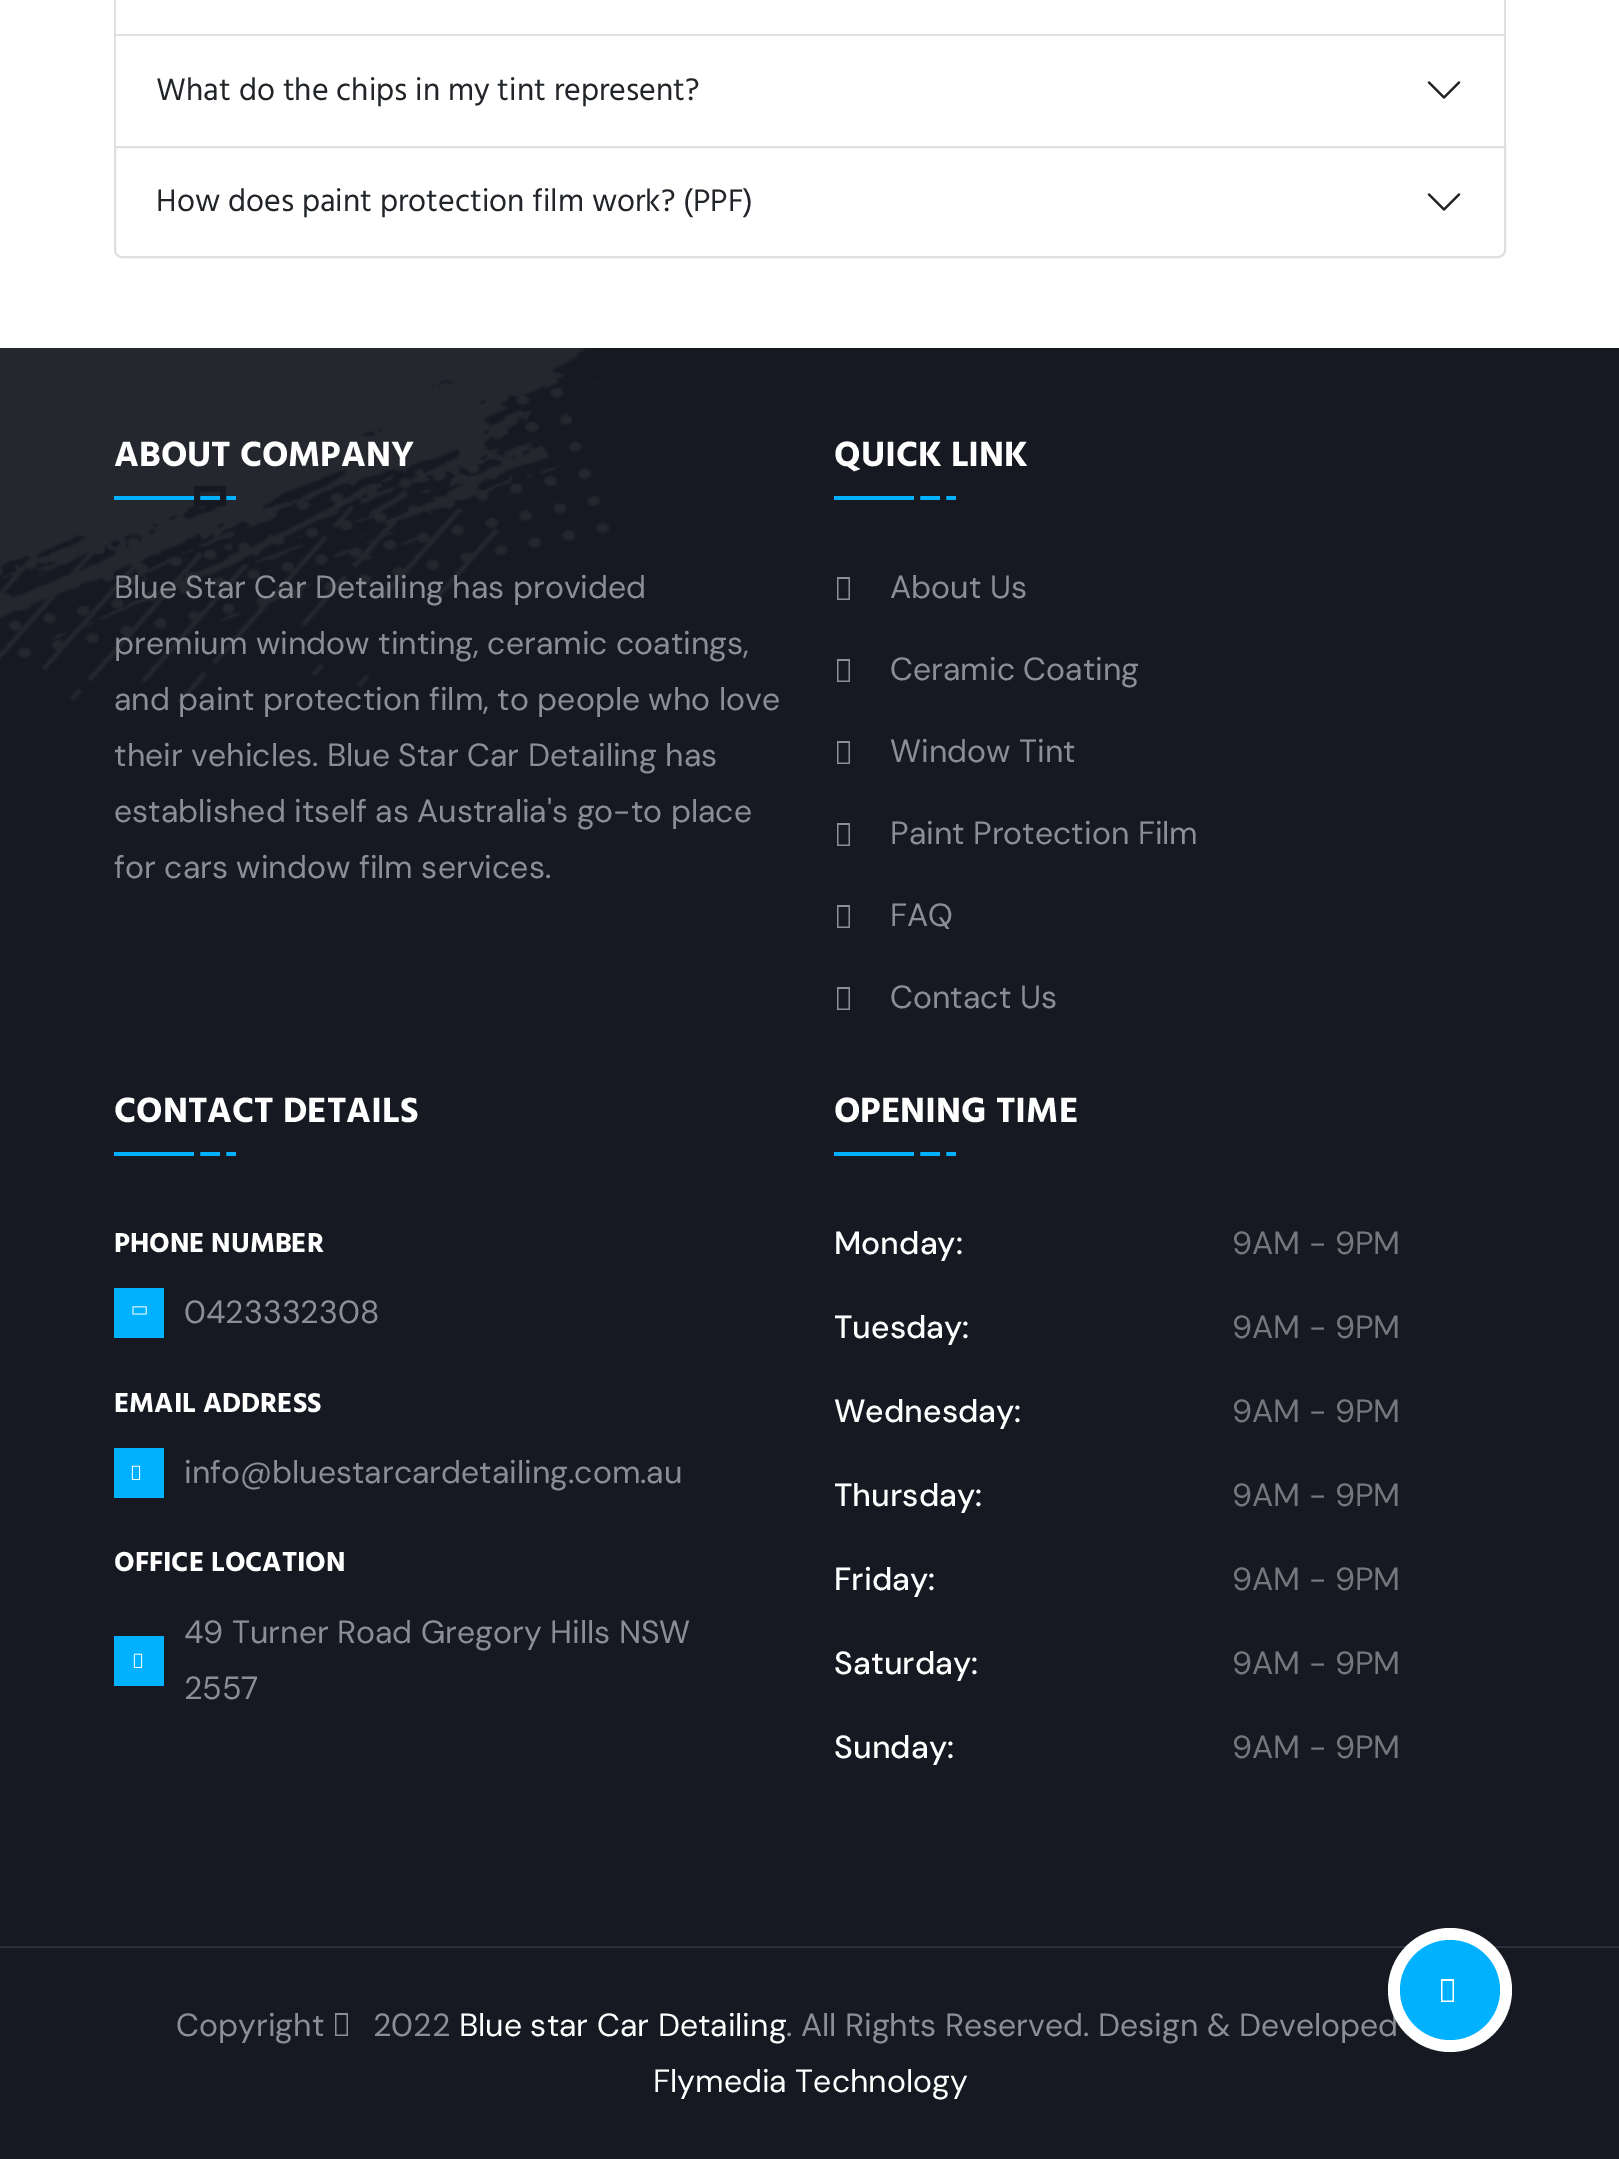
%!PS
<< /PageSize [1619 2159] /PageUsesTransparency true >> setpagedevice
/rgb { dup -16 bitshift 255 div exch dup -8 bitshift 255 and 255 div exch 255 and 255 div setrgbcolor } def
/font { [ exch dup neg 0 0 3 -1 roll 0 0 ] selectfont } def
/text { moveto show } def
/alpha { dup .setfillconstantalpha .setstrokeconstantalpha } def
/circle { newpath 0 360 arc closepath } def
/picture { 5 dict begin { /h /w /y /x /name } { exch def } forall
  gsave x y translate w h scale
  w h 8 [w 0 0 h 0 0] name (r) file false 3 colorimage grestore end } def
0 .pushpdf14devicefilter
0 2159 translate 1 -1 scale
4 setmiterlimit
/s1 { /HindMadurai-Regular 32 font 16#212529 rgb } def
/s2 { /HindMadurai-Bold 36 font 16#FFFFFF rgb } def
/s3 { /DMSans-Regular 32 font 16#8B8E95 rgb } def
/s4 { /HindMadurai-Bold 28 font 16#FFFFFF rgb } def
/s5 { /DMSans-Medium 32 font 16#FFFFFF rgb } def
/s6 { /DMSans-Regular 32 font 16#74787C rgb } def
/s7 { /DMSans-Regular 32 font 16#FFFFFF rgb } def
16#FFFFFF rgb
0 0 1619 2159 rectfill
16#DFDFDF rgb
1506 -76 moveto 1506 34 lineto 1504 34 lineto 1504 -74 lineto closepath fill
114 34 moveto 114 -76 lineto 116 -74 lineto 116 34 lineto closepath fill
114 34 moveto 1506 34 lineto 1504 36 lineto 116 36 lineto closepath fill
0.12 alpha
16#000000 rgb
1506 34 moveto 1506 146 lineto 1504 146 lineto 1504 36 lineto closepath fill
114 146 moveto 114 34 lineto 116 36 lineto 116 146 lineto closepath fill
1 alpha
s1
(What do the chips in my tint represent?) 156 100 text
(pic1.raw) 1427 81 34 18 picture
16#DFDFDF rgb
2 setlinewidth
115 147 moveto 1505 147 lineto 1505 250 lineto 1505 254 1502 257 1498 257 curveto 122 257 lineto 118 257 115 254 115 250 curveto closepath stroke
s1
(How does paint protection film work? \(PPF\)) 156 211 text
(pic1.raw) 1427 193 34 18 picture
16#161921 rgb
0 348 1619 1811 rectfill
(pic2.raw) 0 348 610 355 picture
s2
(ABOUT COMPANY) 114 466 text
16#00B1FF rgb
114 496 122 4 rectfill
16#161921 rgb
6 setlinewidth
197 489 26 14 rectstroke
s3
(Blue Star Car Detailing has provided) 114 598 text
(premium window tinting, ceramic coatings,) 114 654 text
(and paint protection film, to people who love) 114 710 text
(their vehicles. Blue Star Car Detailing has) 114 766 text
(established itself as Australia's go-to place) 114 822 text
(for cars window film services.) 114 878 text
s2
(QUICK LINK) 834 466 text
16#00B1FF rgb
834 496 122 4 rectfill
16#161921 rgb
917 489 26 14 rectstroke
16#8B8E95 rgb
837 600 moveto 837 577 lineto 850 577 lineto 850 600 lineto closepath 838.5 598.5 moveto 848.5 598.5 lineto 848.5 579 lineto 838.5 579 lineto closepath fill
s3
(About Us) 890 598 text
837 682 moveto 837 659 lineto 850 659 lineto 850 682 lineto closepath 838.5 680.5 moveto 848.5 680.5 lineto 848.5 661 lineto 838.5 661 lineto closepath fill
(Ceramic Coating) 890 680 text
837 764 moveto 837 741 lineto 850 741 lineto 850 764 lineto closepath 838.5 762.5 moveto 848.5 762.5 lineto 848.5 743 lineto 838.5 743 lineto closepath fill
(Window Tint) 890 762 text
837 846 moveto 837 823 lineto 850 823 lineto 850 846 lineto closepath 838.5 844.5 moveto 848.5 844.5 lineto 848.5 825 lineto 838.5 825 lineto closepath fill
(Paint Protection Film) 890 844 text
837 928 moveto 837 905 lineto 850 905 lineto 850 928 lineto closepath 838.5 926.5 moveto 848.5 926.5 lineto 848.5 907 lineto 838.5 907 lineto closepath fill
(FAQ) 890 926 text
837 1010 moveto 837 987 lineto 850 987 lineto 850 1010 lineto closepath 838.5 1008.5 moveto 848.5 1008.5 lineto 848.5 989 lineto 838.5 989 lineto closepath fill
(Contact Us) 890 1008 text
s2
(CONTACT DETAILS) 114 1122 text
16#00B1FF rgb
114 1152 122 4 rectfill
16#161921 rgb
197 1145 26 14 rectstroke
s4
(PHONE NUMBER) 114 1252 text
16#00B1FF rgb
114 1288 50 50 rectfill
(pic3.raw) 132 1306 15 9 picture
s3
(0423332308) 184 1323 text
s4
(EMAIL ADDRESS) 114 1412 text
16#00B1FF rgb
114 1448 50 50 rectfill
(pic4.raw) 131 1465 10 15 picture
s3
(info@bluestarcardetailing.com.au) 184 1483 text
s4
(OFFICE LOCATION) 114 1571 text
16#00B1FF rgb
114 1636 50 50 rectfill
(pic4.raw) 133 1653 10 15 picture
s3
(49 Turner Road Gregory Hills NSW) 184 1643 text
(2557) 184 1699 text
s2
(OPENING TIME) 834 1122 text
16#00B1FF rgb
834 1152 122 4 rectfill
16#161921 rgb
917 1145 26 14 rectstroke
s5
(Monday:) 834 1254 text
s6
(9AM - 9PM) 1232 1254 text
s5
(Tuesday:) 834 1338 text
s6
(9AM - 9PM) 1232 1338 text
s5
(Wednesday:) 834 1422 text
s6
(9AM - 9PM) 1232 1422 text
s5
(Thursday:) 834 1506 text
s6
(9AM - 9PM) 1232 1506 text
s5
(Friday:) 834 1590 text
s6
(9AM - 9PM) 1232 1590 text
s5
(Saturday:) 834 1674 text
s6
(9AM - 9PM) 1232 1674 text
s5
(Sunday:) 834 1758 text
s6
(9AM - 9PM) 1232 1758 text
16#2A2F3D rgb
0 1946 1619 2 rectfill
s3
(Copyright) 176 2036 text
335 2036 moveto 335 2013 lineto 348 2013 lineto 348 2036 lineto closepath 336.5 2034.5 moveto 346.5 2034.5 lineto 346.5 2015 lineto 336.5 2015 lineto closepath fill
(2022) 373 2036 text
s7
(Blue star Car Detailing) 459 2036 text
s3
(. All Rights Reserved. Design & Developed) 786 2036 text
s7
(Flymedia Technology) 653 2092 text
1450 1990 62 circle fill
16#00B1FF rgb
1450 1990 50 circle fill
16#FFFFFF rgb
1441 2002 moveto 1441 1979 lineto 1454 1979 lineto 1454 2002 lineto closepath 1442.5 2000.5 moveto 1452.5 2000.5 lineto 1452.5 1981 lineto 1442.5 1981 lineto closepath fill
.poppdf14devicefilter showpage
